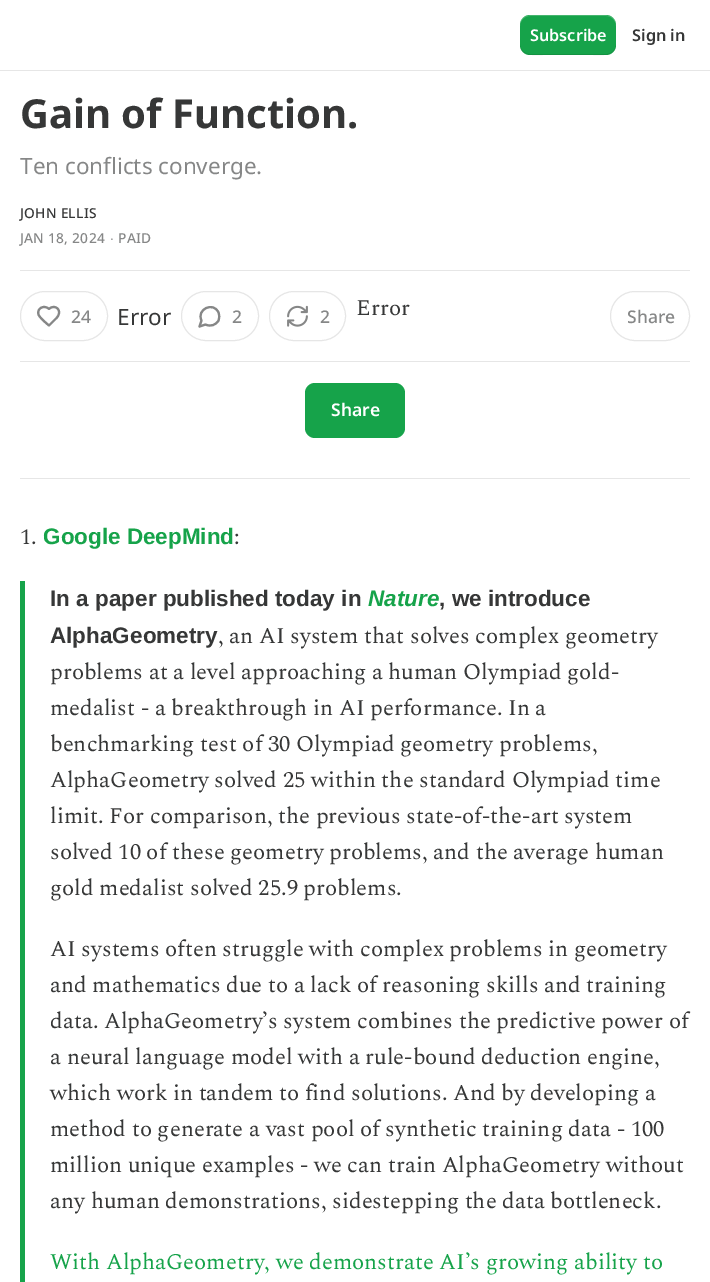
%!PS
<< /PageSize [710 1282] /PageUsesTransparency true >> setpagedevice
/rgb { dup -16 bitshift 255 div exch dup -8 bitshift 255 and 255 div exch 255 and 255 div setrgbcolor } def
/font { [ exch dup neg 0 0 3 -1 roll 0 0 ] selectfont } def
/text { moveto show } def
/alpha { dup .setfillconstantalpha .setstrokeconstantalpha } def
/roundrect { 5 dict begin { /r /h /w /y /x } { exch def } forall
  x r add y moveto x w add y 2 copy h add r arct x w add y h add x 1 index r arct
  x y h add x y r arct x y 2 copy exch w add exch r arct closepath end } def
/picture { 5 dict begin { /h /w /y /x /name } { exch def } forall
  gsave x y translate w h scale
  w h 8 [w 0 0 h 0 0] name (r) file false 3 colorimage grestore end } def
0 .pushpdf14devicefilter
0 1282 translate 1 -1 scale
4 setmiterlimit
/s1 { /NotoSans-SemiBold 16.25 font 16#FFFFFF rgb } def
/s2 { /NotoSans-SemiBold 16.25 font 16#363737 rgb } def
/s3 { /NotoSans-Bold 40 font 16#363737 rgb } def
/s4 { /NotoSans-Regular 22.5 font 16#868787 rgb } def
/s5 { /NotoSans-Medium 17.5 font 16#868787 rgb } def
/s6 { /NotoSans-Regular 22.5 font 16#363737 rgb } def
/s7 { /Spectral-Regular 22.5 font 16#363737 rgb } def
/s8 { /NotoSans-SemiBold 17.5 font 16#FFFFFF rgb } def
/s9 { /LiberationSans-Bold 22.5 font 16#16A34A rgb } def
/s10 { /LiberationSans-Bold 22.5 font 16#363737 rgb } def
/s11 { /LiberationSans-BoldItalic 22.5 font 16#16A34A rgb } def
/s12 { /Spectral-Regular 22.5 font 16#16A34A rgb } def
16#FFFFFF rgb
0 0 710 1282 rectfill
16#E6E6E6 rgb
0 70 710 1 rectfill
16#16A34A rgb
520 15 96 40 10 roundrect fill
0.1 alpha
16#000000 rgb
520 44 moveto 520 57 533 55 543 55 curveto 593 55 lineto 603 55 616 57 616 44 curveto 616 49 612 54 606 54 curveto 530 54 lineto 524 54 520 49 520 44 curveto closepath fill
0.2 alpha
16#FFFFFF rgb
530 16 moveto 606 16 lineto 612 16 616 21 616 26 curveto 616 13 603 15 593 15 curveto 543 15 lineto 533 15 520 13 520 26 curveto 520 21 524 16 530 16 curveto closepath fill
1 alpha
s1
(Subscribe) 530 41 text
s2
(Sign in) 632 41 text
s3
(Gain of Function.) 20 128 text
s4
(Ten conflicts converge.) 20 174 text
/NotoSans-Medium 13.75 font
16#363737 rgb
20 218 moveto 0.25 0 (JOHN ELLIS) ashow
16#868787 rgb
20 243 moveto 0.25 0 (JAN 18, 2024) ashow
/LiberationSans-Regular 13.75 font
110 243 moveto 0.25 0 (∙) ashow
/NotoSans-Medium 13.75 font
118 243 moveto 0.25 0 (PAID) ashow
16#E6E6E6 rgb
20 270 670 1 rectfill
20 361 670 1 rectfill
20.5 291.5 87 49 24.5 roundrect stroke
16#868787 rgb
2.1 setlinewidth
1 setlinecap
1 setlinejoin
56 318.5 moveto 64 311 55 303 49 309 curveto 44.5 304.5 36.5 308 38.5 314.5 curveto 39.5 317.5 46 323 49 325.5 curveto closepath stroke
s5
(24) 71 323 text
s6
(Error) 117 325 text
16#E6E6E6 rgb
1 setlinewidth
0 setlinecap
0 setlinejoin
181.5 291.5 77 49 24.5 roundrect stroke
16#868787 rgb
2.1 setlinewidth
1 setlinecap
1 setlinejoin
205.5 324.5 moveto 210.5 327 216 325 218.5 320.5 curveto 219.5 318 219.5 315 218.5 312.5 curveto 213.5 301 196 309.5 201.5 320.5 curveto 199.5 326.5 lineto closepath stroke
s5
(2) 232 323 text
16#E6E6E6 rgb
1 setlinewidth
0 setlinecap
0 setlinejoin
269.5 291.5 76 49 24.5 roundrect stroke
(pic1.raw) 287 305 21 22 picture
s5
(2) 320 323 text
s7
(Error) 356 315 text
16#E6E6E6 rgb
610.5 291.5 79 49 24.5 roundrect stroke
s5
(Share) 627 323 text
16#16A34A rgb
305 383 100 55 10 roundrect fill
s8
(Share) 331 416 text
16#E6E6E6 rgb
20 478 670 1 rectfill
s7
(1.) 20 544 text
s9
(Google DeepMind) 43 544 text
s7
(:) 234 544 text
16#16A34A rgb
20 581 5 701 rectfill
s10
(In a paper published today in) 50 606 text
s11
(Nature) 368 606 text
s10
(, we introduce) 439 606 text
(AlphaGeometry) 50 643 text
s7
(, an AI system that solves complex geometry) 218 643 text
(problems at a level approaching a human Olympiad gold-) 50 679 text
(medalist - a breakthrough in AI performance. In a) 50 715 text
(benchmarking test of 30 Olympiad geometry problems,) 50 751 text
(AlphaGeometry solved 25 within the standard Olympiad time) 50 787 text
(limit. For comparison, the previous state-of-the-art system) 50 823 text
(solved 10 of these geometry problems, and the average human) 50 859 text
(gold medalist solved 25.9 problems.) 50 895 text
(AI systems often struggle with complex problems in geometry) 50 956 text
(and mathematics due to a lack of reasoning skills and training) 50 992 text
(data. AlphaGeometry’s system combines the predictive power of) 50 1028 text
(a neural language model with a rule-bound deduction engine,) 50 1064 text
(which work in tandem to find solutions. And by developing a) 50 1100 text
(method to generate a vast pool of synthetic training data - 100) 50 1136 text
(million unique examples - we can train AlphaGeometry without) 50 1172 text
(any human demonstrations, sidestepping the data bottleneck.) 50 1208 text
s12
(With AlphaGeometry, we demonstrate AI’s growing ability to) 50 1269 text
.poppdf14devicefilter showpage
